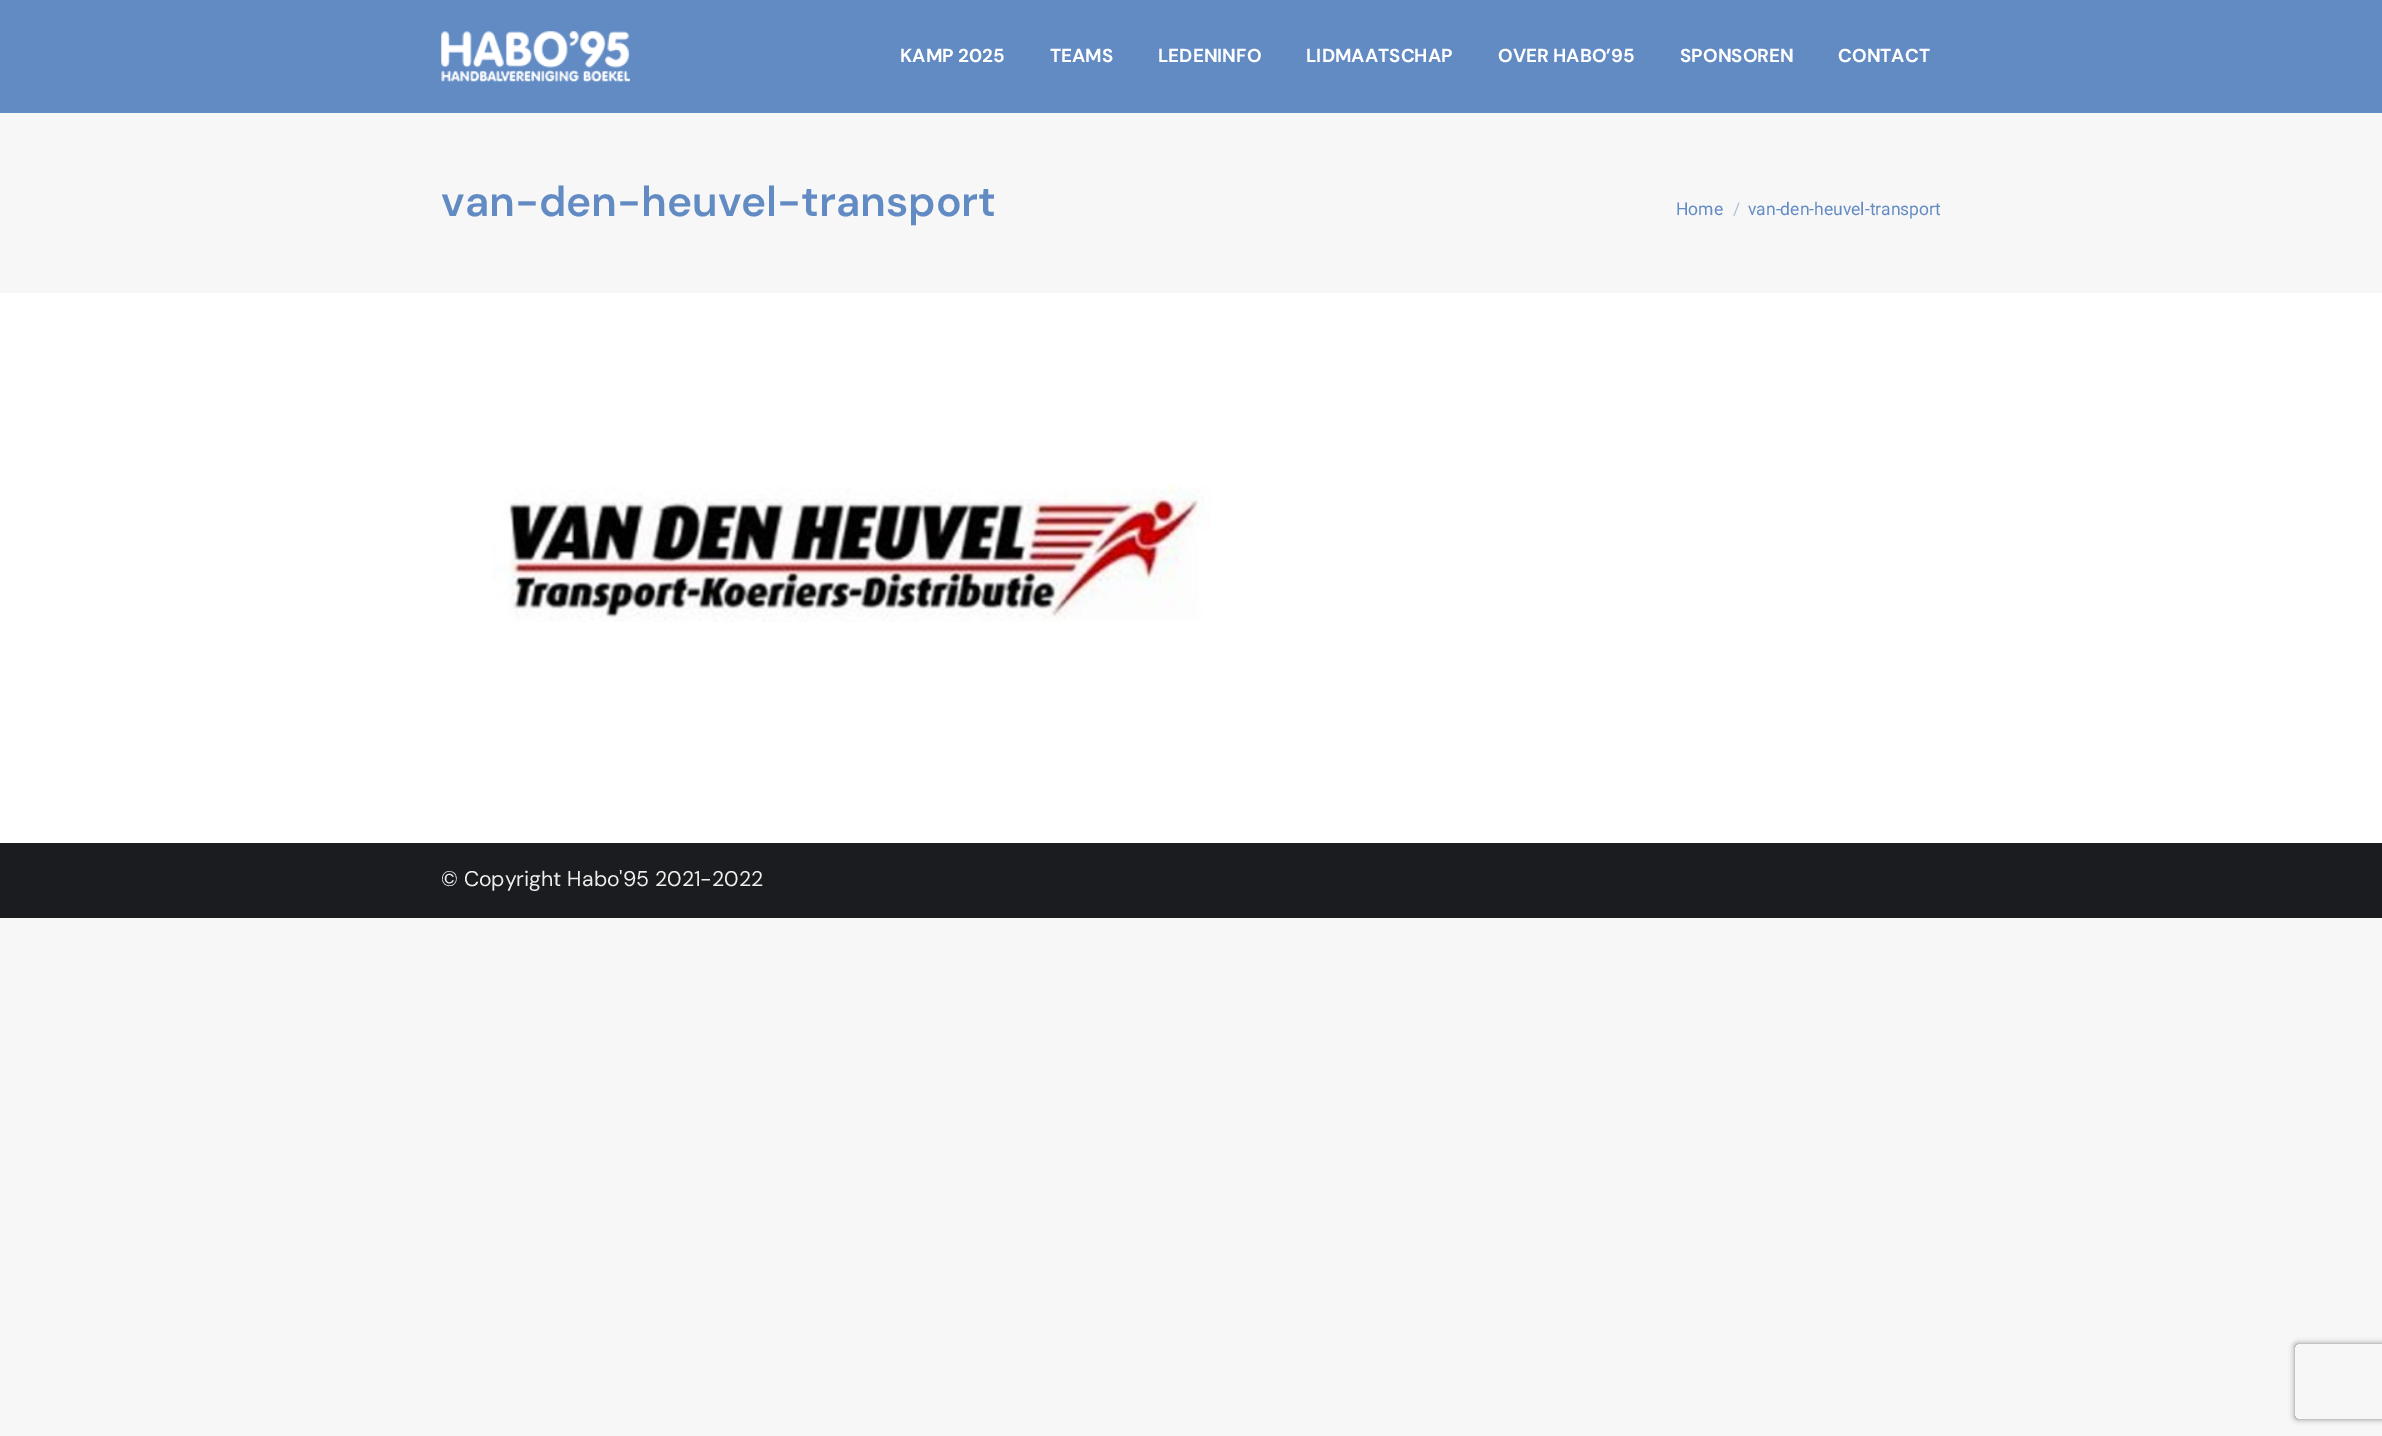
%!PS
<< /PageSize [2382 1436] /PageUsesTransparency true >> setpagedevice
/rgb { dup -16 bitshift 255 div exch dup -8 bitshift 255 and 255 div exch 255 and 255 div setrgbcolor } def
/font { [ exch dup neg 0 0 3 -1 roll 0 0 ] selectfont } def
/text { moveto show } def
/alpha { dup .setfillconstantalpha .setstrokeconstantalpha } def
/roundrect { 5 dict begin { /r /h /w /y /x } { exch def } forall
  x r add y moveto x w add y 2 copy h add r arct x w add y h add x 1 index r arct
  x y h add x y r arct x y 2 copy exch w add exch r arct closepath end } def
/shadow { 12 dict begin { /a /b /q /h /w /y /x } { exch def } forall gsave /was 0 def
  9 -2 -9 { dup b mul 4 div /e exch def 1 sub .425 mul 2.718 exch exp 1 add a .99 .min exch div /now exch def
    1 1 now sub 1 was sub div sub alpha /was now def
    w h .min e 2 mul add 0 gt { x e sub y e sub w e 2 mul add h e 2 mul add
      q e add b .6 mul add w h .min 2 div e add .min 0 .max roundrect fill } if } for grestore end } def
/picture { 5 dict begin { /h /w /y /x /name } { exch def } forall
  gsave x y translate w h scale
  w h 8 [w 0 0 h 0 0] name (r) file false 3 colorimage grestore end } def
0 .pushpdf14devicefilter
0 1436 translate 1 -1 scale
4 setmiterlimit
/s1 { /DMSans-Bold 18.75 font 16#FFFFFF rgb } def
/s2 { /DMSans-SemiBold 42.5 font 16#628BC4 rgb } def
/s3 { /Roboto-Regular 17.5 font 16#628BC4 rgb } def
/s4 { /Roboto-Regular 17.5 font 16#ACC0DC rgb } def
/s5 { /DMSans-Regular 21.25 font 16#EEEEEE rgb } def
16#F7F7F7 rgb
0 0 2382 1436 rectfill
16#FFFFFF rgb
0 293 2382 550 rectfill
16#628BC4 rgb
0 0 2382 113 rectfill
(pic1.raw) 441 31 189 51 picture
s1
(KAMP 2025) 900 62 text
(TEAMS) 1050 62 text
(LEDENINFO) 1158 62 text
(LIDMAATSCHAP) 1306 62 text
(OVER HABO’95) 1498 62 text
(SPONSOREN) 1680 62 text
(CONTACT) 1838 62 text
s2
(van-den-heuvel-transport) 441 216 text
s3
(Home) 1676 215 text
s4
(/) 1733 215 text
s3
(van-den-heuvel-transport) 1748 215 text
(pic2.raw) 492 485 719 137 picture
16#1A1C20 rgb
0 843 2382 75 rectfill
s5
(© Copyright Habo'95 2021-2022) 441 886 text
gsave
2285 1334 moveto 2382 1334 lineto 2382 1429 lineto 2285 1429 lineto closepath 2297.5 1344 moveto 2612.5 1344 lineto 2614 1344 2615 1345 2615 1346.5 curveto 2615 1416.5 lineto 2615 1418 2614 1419 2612.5 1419 curveto 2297.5 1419 lineto 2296 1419 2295 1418 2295 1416.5 curveto 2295 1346.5 lineto 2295 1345 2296 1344 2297.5 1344 curveto closepath eoclip newpath
16#808080 rgb
2295 1344 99 75 2.5 3 1 shadow
grestore
.poppdf14devicefilter showpage
